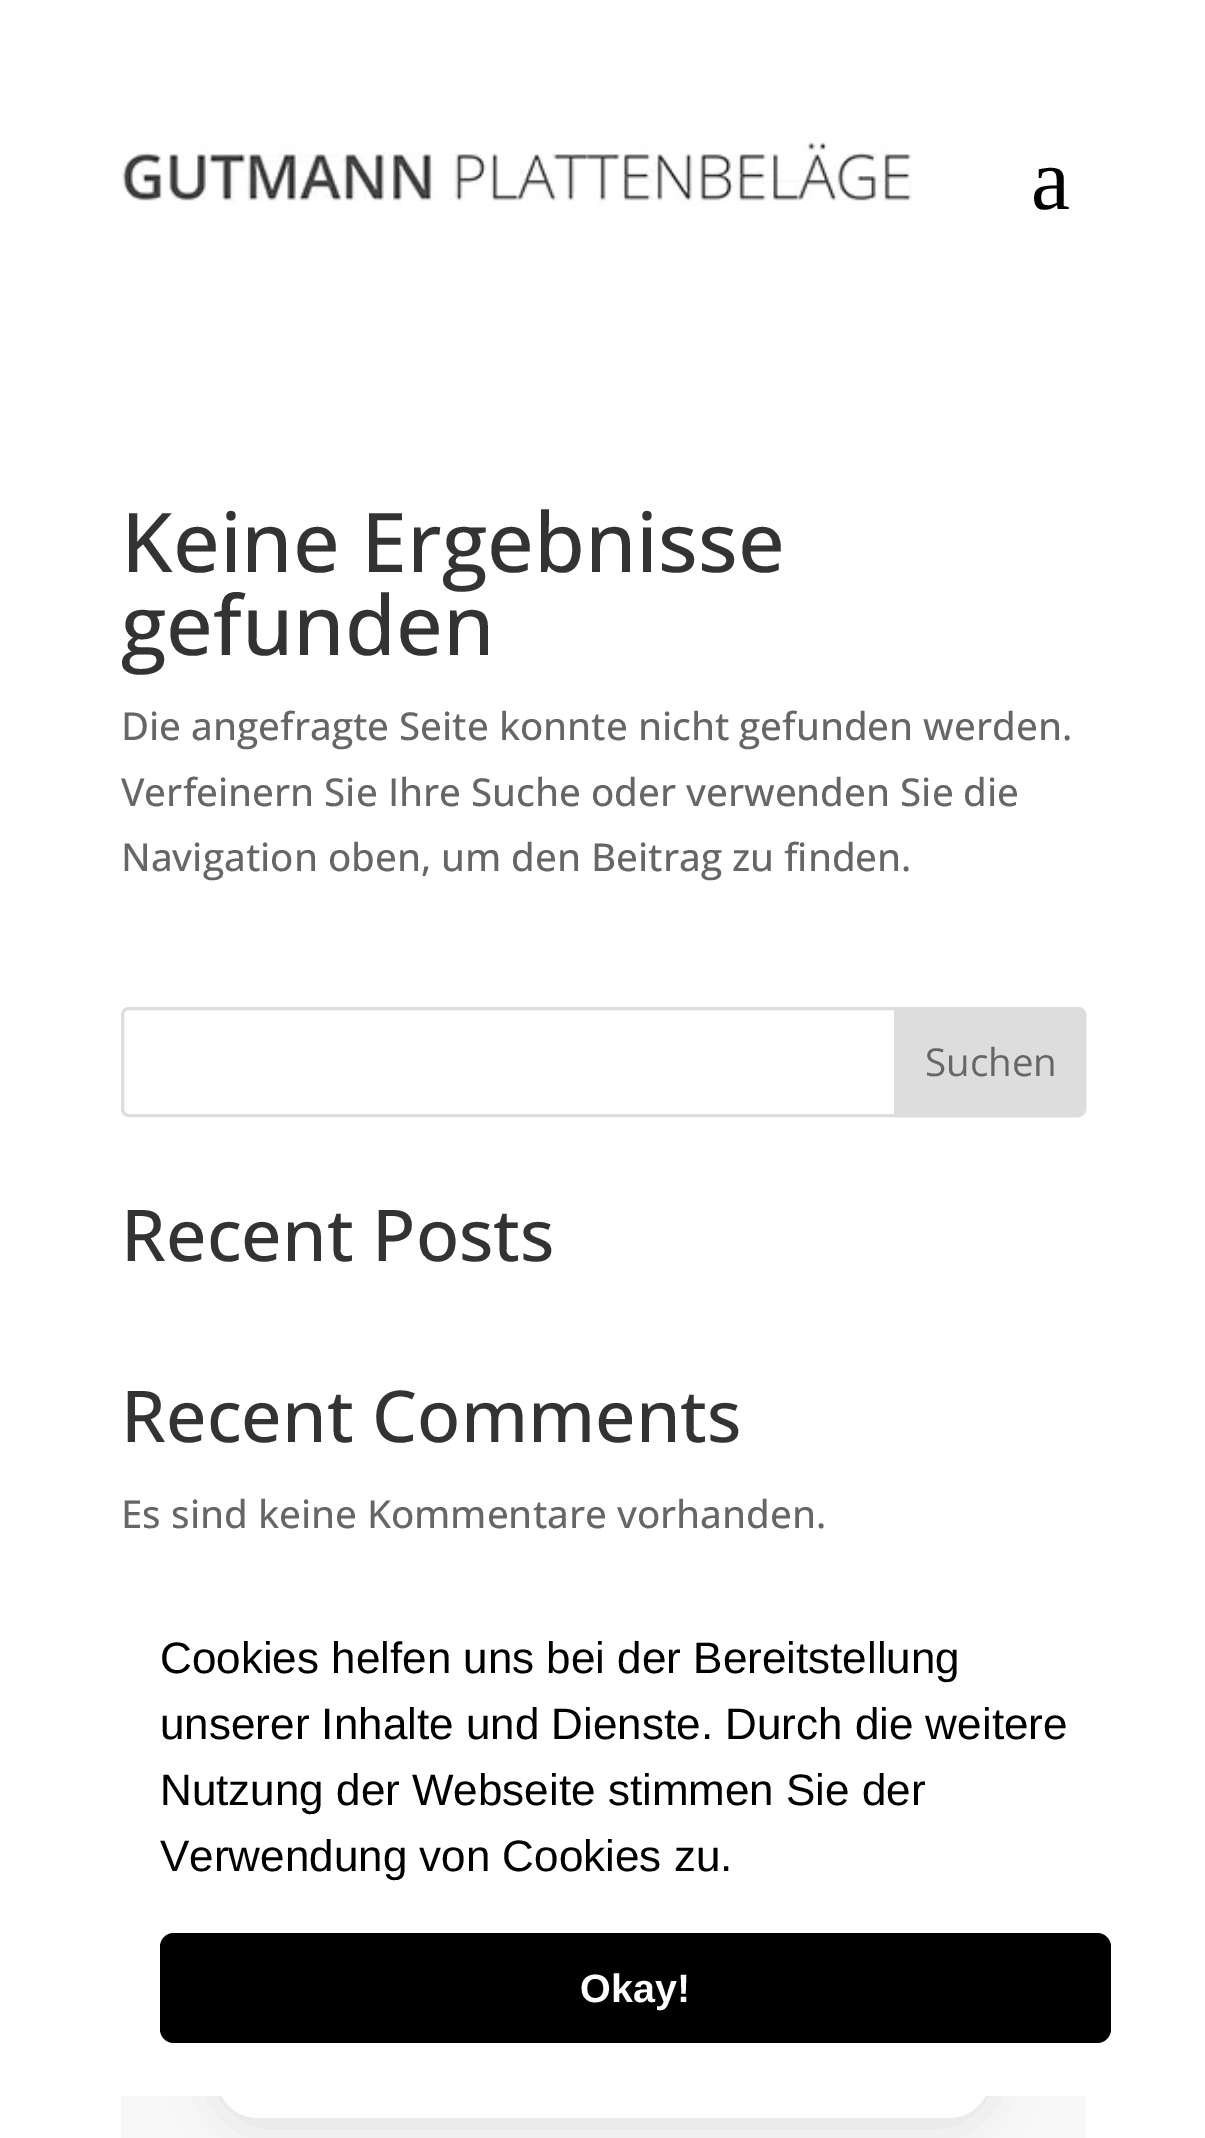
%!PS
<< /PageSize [1205 2138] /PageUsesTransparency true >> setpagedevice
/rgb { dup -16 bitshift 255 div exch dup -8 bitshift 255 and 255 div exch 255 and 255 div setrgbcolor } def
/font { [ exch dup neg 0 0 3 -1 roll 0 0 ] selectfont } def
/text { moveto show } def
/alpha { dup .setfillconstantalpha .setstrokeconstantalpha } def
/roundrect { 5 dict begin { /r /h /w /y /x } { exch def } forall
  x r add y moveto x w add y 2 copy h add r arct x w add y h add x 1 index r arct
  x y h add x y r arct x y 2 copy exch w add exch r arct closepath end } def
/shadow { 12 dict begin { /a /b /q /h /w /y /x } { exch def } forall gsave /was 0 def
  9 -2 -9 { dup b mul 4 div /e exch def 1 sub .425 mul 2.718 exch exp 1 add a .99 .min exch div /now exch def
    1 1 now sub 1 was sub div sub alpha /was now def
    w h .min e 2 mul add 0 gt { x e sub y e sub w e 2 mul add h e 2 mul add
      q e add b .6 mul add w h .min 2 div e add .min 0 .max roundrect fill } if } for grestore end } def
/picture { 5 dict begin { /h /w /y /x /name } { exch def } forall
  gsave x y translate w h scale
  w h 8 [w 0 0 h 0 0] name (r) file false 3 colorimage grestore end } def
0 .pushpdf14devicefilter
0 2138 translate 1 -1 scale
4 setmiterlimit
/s1 { /LiberationSerif-Regular 88 font 16#000000 rgb } def
/s2 { /OpenSans-Medium 82.5 font 16#333333 rgb } def
/s3 { /OpenSans-Medium 38.5 font 16#666666 rgb } def
/s4 { /OpenSans-Regular 38.5 font 16#666666 rgb } def
/s5 { /OpenSans-Medium 71.5 font 16#333333 rgb } def
/s6 { /LiberationSans-Regular 44 font 16#000000 rgb } def
/s7 { /LiberationSans-Bold 39.5 font 16#FFFFFF rgb } def
16#FFFFFF rgb
0 0 1205 2138 rectfill
(pic1.raw) 121 137 791 69 picture
s1
(a) 1031 209 text
s2
(Keine Ergebnisse) 121 572 text
(gefunden) 121 655 text
s3
(Die angefragte Seite konnte nicht gefunden werden.) 121 740 text
(Verfeinern Sie Ihre Suche oder verwenden Sie die) 121 806 text
(Navigation oben, um den Beitrag zu finden.) 121 871 text
16#DDDDDD rgb
3 setlinewidth
122.5 1008.5 962 107 6.5 roundrect stroke
895.5 1008.5 moveto 1078 1008.5 lineto 1081.5 1008.5 1084.5 1011.5 1084.5 1015 curveto 1084.5 1109 lineto 1084.5 1112.5 1081.5 1115.5 1078 1115.5 curveto 895.5 1115.5 lineto closepath gsave fill grestore
stroke
s4
(Suchen) 925 1076 text
s5
(Recent Posts) 121 1261 text
(Recent Comments) 121 1442 text
s3
(Es sind keine Kommentare vorhanden.) 121 1528 text
16#F8F8F8 rgb
121 2096 965 42 rectfill
16#000000 rgb
217 1986 773 137 41 25 0.1 shadow
16#FFFFFF rgb
217 1980 773 138 41 roundrect fill
107 1573 1056 523 14 roundrect fill
s6
(Cookies helfen uns bei der Bereitstellung) 160 1673 text
(unserer Inhalte und Dienste. Durch die weitere) 160 1739 text
(Nutzung der Webseite stimmen Sie der) 160 1805 text
(Verwendung von Cookies zu.) 160 1871 text
160 1933 951 110 14 roundrect fill
s7
(Okay!) 580 2002 text
.poppdf14devicefilter showpage
